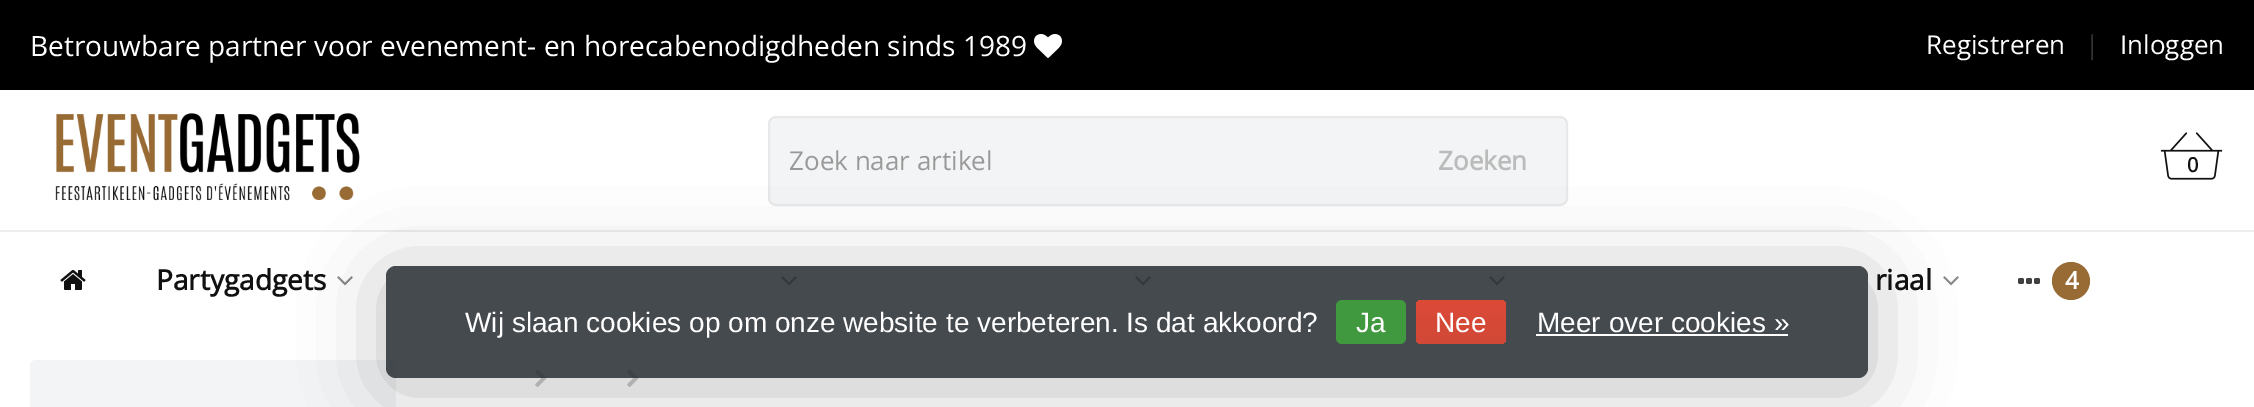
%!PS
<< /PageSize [2254 407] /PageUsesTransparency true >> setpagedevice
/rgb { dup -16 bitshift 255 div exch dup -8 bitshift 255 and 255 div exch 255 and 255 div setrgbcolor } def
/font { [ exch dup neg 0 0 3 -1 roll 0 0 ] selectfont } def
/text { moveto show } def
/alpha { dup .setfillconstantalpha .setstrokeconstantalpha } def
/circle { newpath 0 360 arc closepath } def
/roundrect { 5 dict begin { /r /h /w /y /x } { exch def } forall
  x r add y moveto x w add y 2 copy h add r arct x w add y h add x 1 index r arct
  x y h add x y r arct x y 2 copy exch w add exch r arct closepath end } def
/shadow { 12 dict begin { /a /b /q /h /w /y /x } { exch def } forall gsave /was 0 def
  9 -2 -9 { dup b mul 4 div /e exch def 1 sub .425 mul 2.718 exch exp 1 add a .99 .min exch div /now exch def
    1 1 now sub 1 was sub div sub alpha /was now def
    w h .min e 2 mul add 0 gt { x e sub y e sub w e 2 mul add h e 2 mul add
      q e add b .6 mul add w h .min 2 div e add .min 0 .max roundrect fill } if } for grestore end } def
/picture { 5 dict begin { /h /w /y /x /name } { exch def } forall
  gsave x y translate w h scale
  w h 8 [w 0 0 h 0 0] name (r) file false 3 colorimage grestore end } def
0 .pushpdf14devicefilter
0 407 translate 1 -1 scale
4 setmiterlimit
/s1 { /OpenSans-Regular 28 font 16#FFFFFF rgb } def
/s2 { /OpenSans-Regular 26 font 16#FFFFFF rgb } def
/s3 { /OpenSans-Regular 26 font 16#333333 rgb } def
/s4 { /OpenSans-Regular 26 font 16#999999 rgb } def
/s5 { /OpenSans-Bold 26 font 16#BBBBBB rgb } def
/s6 { /OpenSans-Bold 20 font 16#111111 rgb } def
/s7 { /OpenSans-Bold 28 font 16#111111 rgb } def
/s8 { /OpenSans-Bold 24 font 16#FFFFFF rgb } def
/s9 { /LiberationSans-Regular 28 font 16#FFFFFF rgb } def
16#FFFFFF rgb
0 0 2254 407 rectfill
16#000000 rgb
0 0 2254 90 rectfill
s1
(Betrouwbare partner voor evenement- en horecabenodigdheden sinds 1989) 30 56 text
(pic1.raw) 1034 34 28 24 picture
s2
(Registreren) 1926 54 text
s3
(|) 2085 54 text
s2
(Inloggen) 2120 54 text
(pic2.raw) 55 113 305 88 picture
16#F3F4F5 rgb
768 116 800 90 8 roundrect fill
0.5 alpha
16#DDDDDD rgb
2 setlinewidth
769 117 798 88 7 roundrect stroke
1 alpha
s4
(Zoek naar artikel) 789 170 text
s5
(Zoeken) 1438 170 text
(pic3.raw) 2160 132 63 48 picture
16#FFFFFF rgb
2178 157 27 15 rectfill
s6
(0) 2187 172 text
(pic4.raw) 60 270 26 20 picture
s7
(Partygadgets) 156 290 text
(pic5.raw) 337 276 16 10 picture
(pic5.raw) 781 276 16 10 picture
(pic5.raw) 1135 276 16 10 picture
(pic5.raw) 1489 276 16 10 picture
(riaal) 1875 290 text
(pic5.raw) 1943 276 16 10 picture
(pic6.raw) 2018 278 22 6 picture
16#986B35 rgb
2071 281 19 circle fill
s8
(4) 2065 289 text
16#EEEEEE rgb
0 230 2254 2 rectfill
16#F3F4F5 rgb
30 360 366 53 6 roundrect fill
(pic7.raw) 535 369 12 18 picture
(pic7.raw) 627 369 12 18 picture
gsave
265 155 moveto 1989 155 lineto 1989 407 lineto 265 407 lineto closepath 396 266 moveto 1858 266 lineto 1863.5 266 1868 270.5 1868 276 curveto 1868 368 lineto 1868 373.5 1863.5 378 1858 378 curveto 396 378 lineto 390.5 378 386 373.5 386 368 curveto 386 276 lineto 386 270.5 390.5 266 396 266 curveto closepath eoclip newpath
16#000000 rgb
386 276 1482 112 10 40 0.25 shadow
grestore
0.85 alpha
16#242A30 rgb
386 266 1482 112 10 roundrect fill
1 alpha
s9
(Wij slaan cookies op om onze website te verbeteren. Is dat akkoord?) 465 332 text
16#40983F rgb
1336 300 70 44 6 roundrect fill
s9
(Ja) 1356 332 text
gsave 1416 300 90 44 6 roundrect clip newpath
<< /ShadingType 2 /ColorSpace /DeviceRGB /Coords [1461 300 1461 344] /Extend [true true] /Function << /FunctionType 2 /Domain [0 1] /C0 [0.863 0.29 0.22] /C1 [0.82 0.282 0.212] /N 1 >> >> shfill grestore
(Nee) 1435 332 text
(Meer over cookies ») 1537 332 text
1536 334 252 2 rectfill
.poppdf14devicefilter showpage
